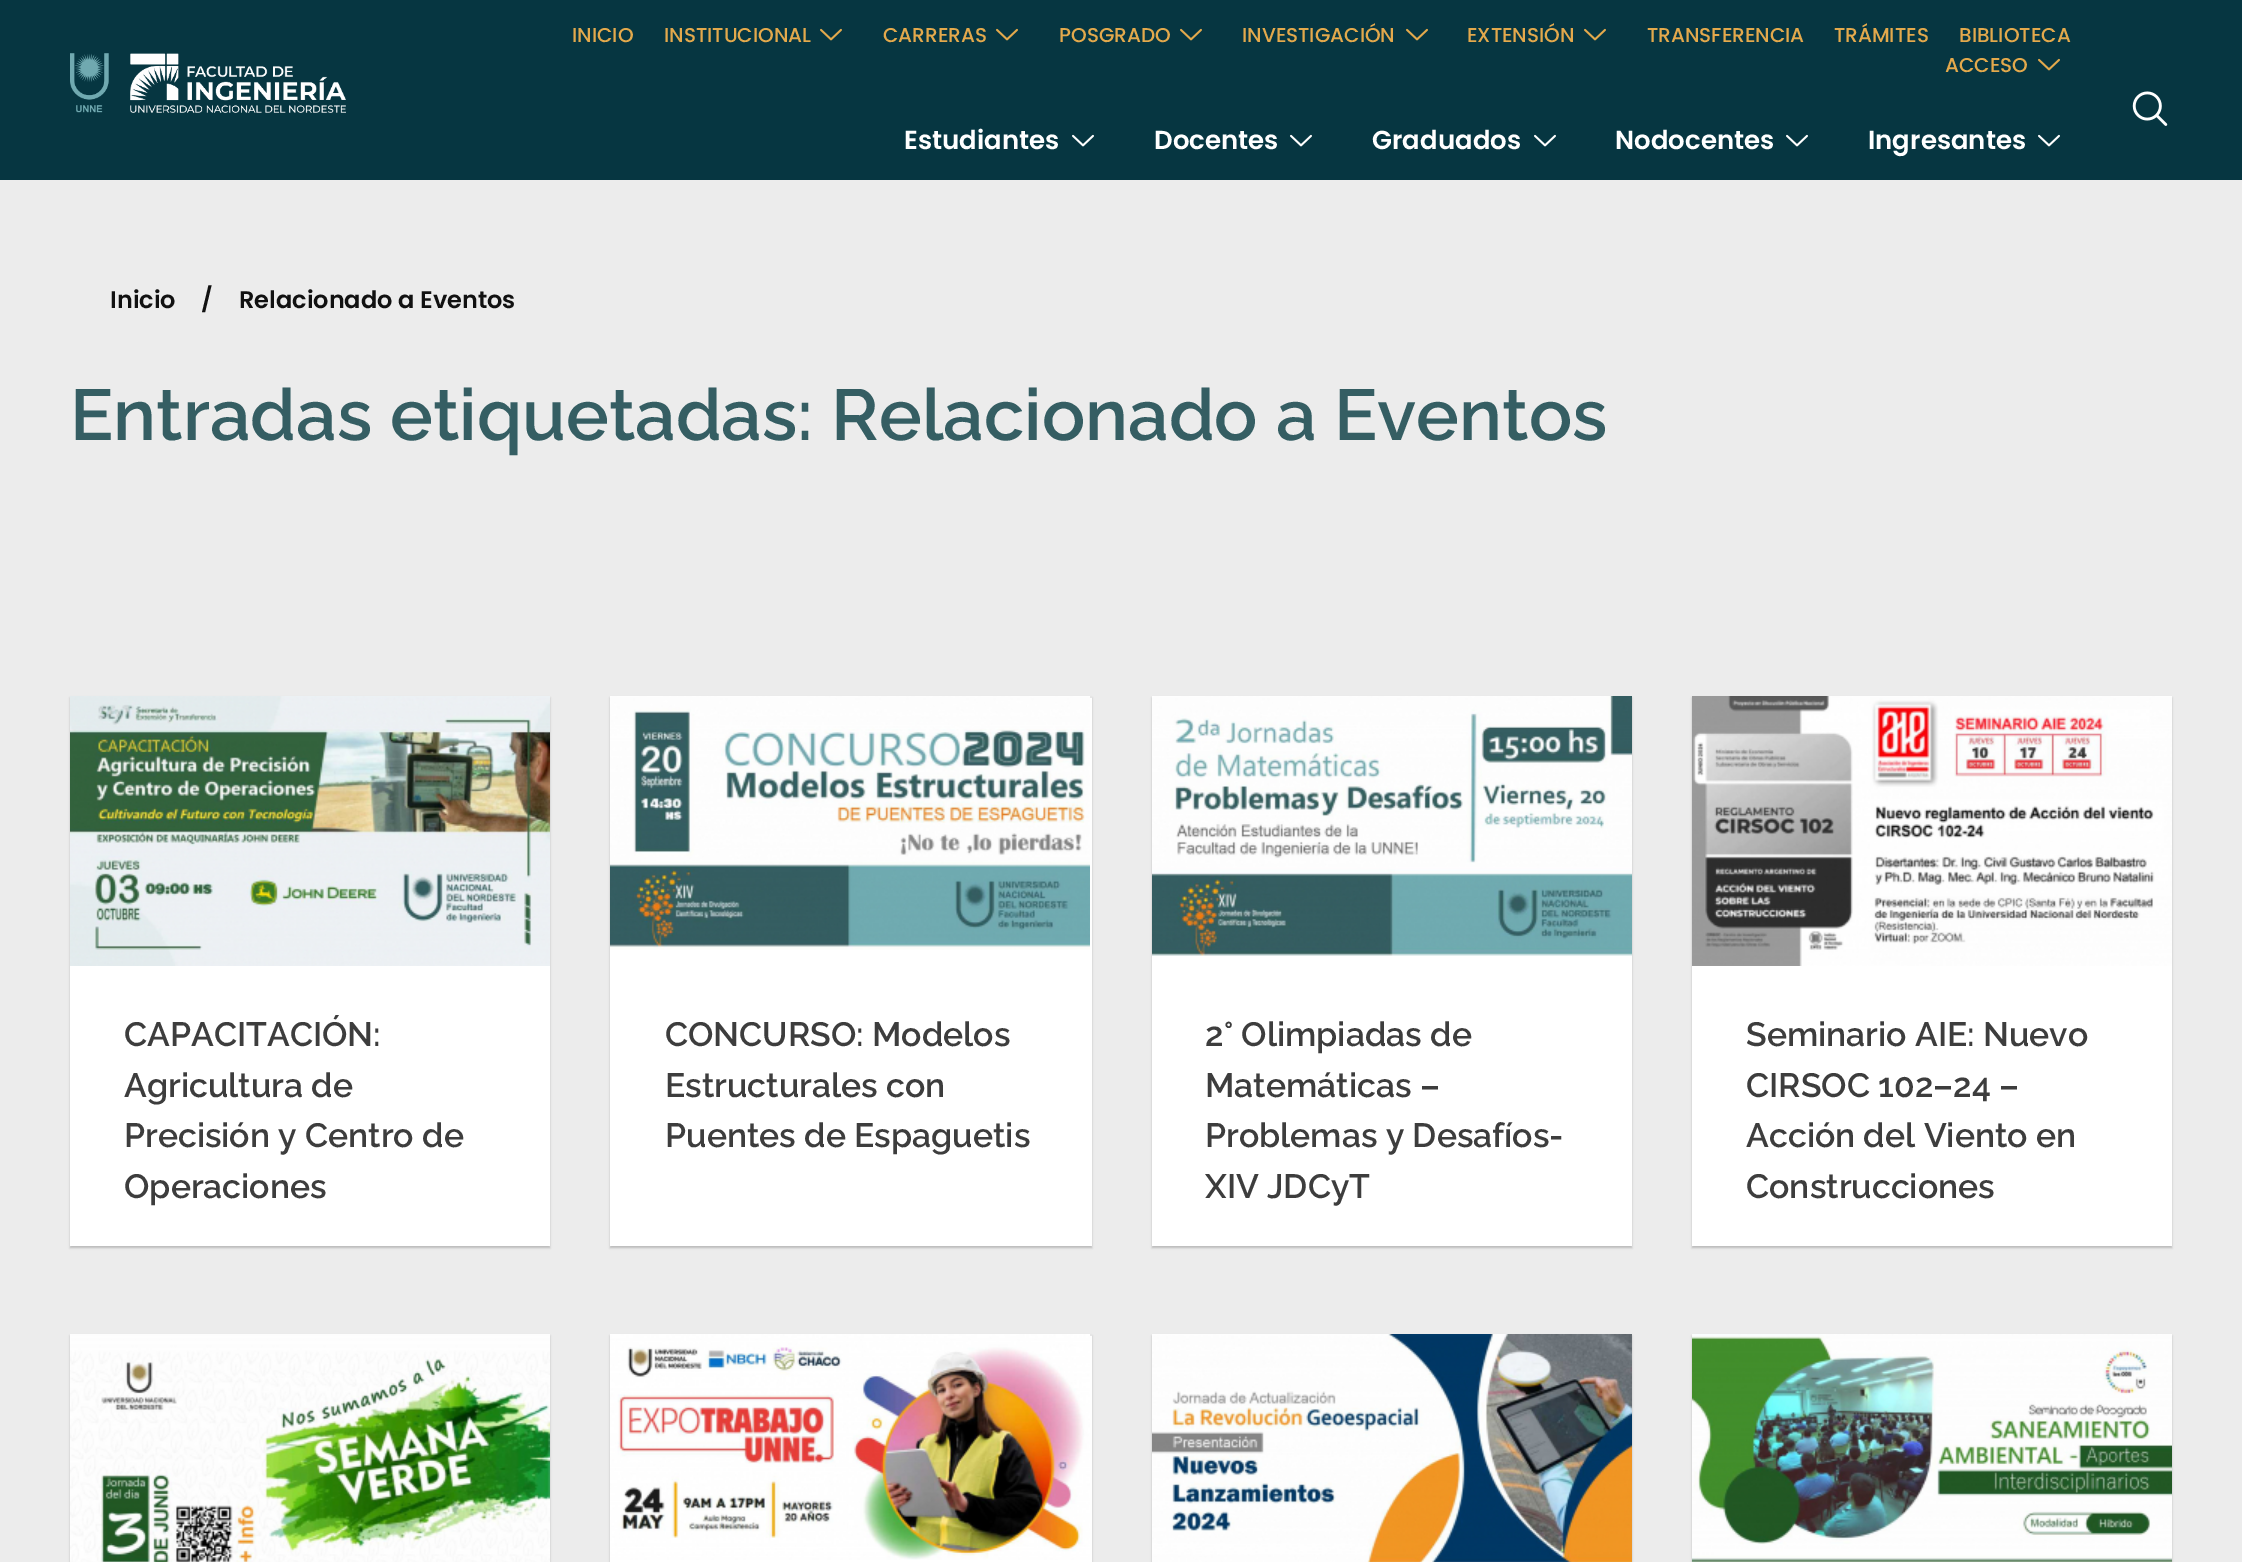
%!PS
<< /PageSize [2242 1562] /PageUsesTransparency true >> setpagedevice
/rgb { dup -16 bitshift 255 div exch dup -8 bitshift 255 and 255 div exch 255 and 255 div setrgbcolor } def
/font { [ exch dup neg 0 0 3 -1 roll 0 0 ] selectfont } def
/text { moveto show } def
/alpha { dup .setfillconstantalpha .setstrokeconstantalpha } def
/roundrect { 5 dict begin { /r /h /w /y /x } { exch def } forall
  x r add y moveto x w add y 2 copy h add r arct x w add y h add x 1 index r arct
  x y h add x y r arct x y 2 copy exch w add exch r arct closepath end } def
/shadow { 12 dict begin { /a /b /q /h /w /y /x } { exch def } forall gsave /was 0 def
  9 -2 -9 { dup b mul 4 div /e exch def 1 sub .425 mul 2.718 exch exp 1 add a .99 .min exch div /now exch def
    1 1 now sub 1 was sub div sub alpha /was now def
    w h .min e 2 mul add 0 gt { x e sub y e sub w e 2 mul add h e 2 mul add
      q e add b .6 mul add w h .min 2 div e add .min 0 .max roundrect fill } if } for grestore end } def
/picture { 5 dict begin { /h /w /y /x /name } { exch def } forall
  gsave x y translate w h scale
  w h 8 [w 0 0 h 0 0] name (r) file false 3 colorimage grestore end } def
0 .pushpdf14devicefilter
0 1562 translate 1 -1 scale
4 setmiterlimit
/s1 { /Poppins-Medium 20 font 16#E3A94C rgb } def
/s2 { /Poppins-SemiBold 26 font 16#FFFFFF rgb } def
/s3 { /Poppins-SemiBold 24 font 16#111111 rgb } def
/s4 { /Raleway-SemiBold 72 font 16#355E63 rgb } def
/s5 { /Raleway-SemiBold 33.75 font 16#3D3D3D rgb } def
16#ECECEC rgb
0 0 2242 1562 rectfill
16#063641 rgb
0 0 2242 180 rectfill
(pic1.raw) 70 53 276 60 picture
s1
(INICIO) 572 42 text
(INSTITUCIONAL) 664 42 text
(pic2.raw) 820 28 22 13 picture
(CARRERAS) 883 42 text
(pic2.raw) 996 28 22 13 picture
(POSGRADO) 1059 42 text
(pic2.raw) 1180 28 22 13 picture
(INVESTIGACIÓN) 1242 42 text
(pic2.raw) 1406 28 22 13 picture
(EXTENSIÓN) 1467 42 text
(pic2.raw) 1584 28 22 13 picture
(TRANSFERENCIA) 1647 42 text
(TRÁMITES) 1834 42 text
(BIBLIOTECA) 1959 42 text
(ACCESO) 1945 72 text
(pic2.raw) 2038 58 22 13 picture
s2
(Estudiantes) 904 149 text
(pic3.raw) 1072 134 22 13 picture
(Docentes) 1154 149 text
(pic3.raw) 1290 134 22 13 picture
(Graduados) 1372 149 text
(pic3.raw) 1534 134 22 13 picture
(Nodocentes) 1615 149 text
(pic3.raw) 1786 134 22 13 picture
(Ingresantes) 1868 149 text
(pic3.raw) 2038 134 22 13 picture
(pic4.raw) 2132 91 36 35 picture
s3
(Inicio) 110 308 text
(/) 201 308 text
(Relacionado a Eventos) 239 308 text
s4
(Entradas etiquetadas: Relacionado a Eventos) 70 440 text
16#000000 rgb
70 698 480 550 0 1 0.2 shadow
16#FFFFFF rgb
70 966 480 280 rectfill
(pic5.raw) 70 696 480 270 picture
s5
(CAPACITACIÓN:) 124 1046 text
(Agricultura de) 124 1097 text
(Precisión y Centro de) 124 1147 text
(Operaciones) 124 1198 text
16#000000 rgb
610 698 482 550 0 1 0.2 shadow
16#FFFFFF rgb
610 698 482 548 rectfill
16#E6E6E6 rgb
1090 696 2 2 rectfill
(pic6.raw) 610 696 480 254 picture
s5
(CONCURSO: Modelos) 665 1046 text
(Estructurales con) 665 1097 text
(Puentes de Espaguetis) 665 1147 text
16#000000 rgb
1152 698 480 550 0 1 0.2 shadow
16#FFFFFF rgb
1152 956 480 290 rectfill
(pic7.raw) 1152 696 480 260 picture
s5
(2° Olimpiadas de) 1205 1046 text
(Matemáticas –) 1205 1097 text
(Problemas y Desafíos-) 1205 1147 text
(XIV JDCyT) 1205 1198 text
16#000000 rgb
1692 698 480 550 0 1 0.2 shadow
16#FFFFFF rgb
1692 966 480 280 rectfill
(pic8.raw) 1692 696 480 270 picture
s5
(Seminario AIE: Nuevo) 1746 1046 text
(CIRSOC 102–24 –) 1746 1097 text
(Acción del Viento en) 1746 1147 text
(Construcciones) 1746 1198 text
16#000000 rgb
70 1336 480 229 0 1 0.2 shadow
(pic9.raw) 70 1334 480 228 picture
610 1336 482 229 0 1 0.2 shadow
16#FFFFFF rgb
610 1336 482 226 rectfill
16#E6E6E6 rgb
1090 1334 2 2 rectfill
(pic10.raw) 610 1334 480 226 picture
16#000000 rgb
1152 1336 480 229 0 1 0.2 shadow
(pic11.raw) 1152 1334 480 228 picture
1692 1336 480 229 0 1 0.2 shadow
(pic12.raw) 1692 1334 480 228 picture
.poppdf14devicefilter showpage
